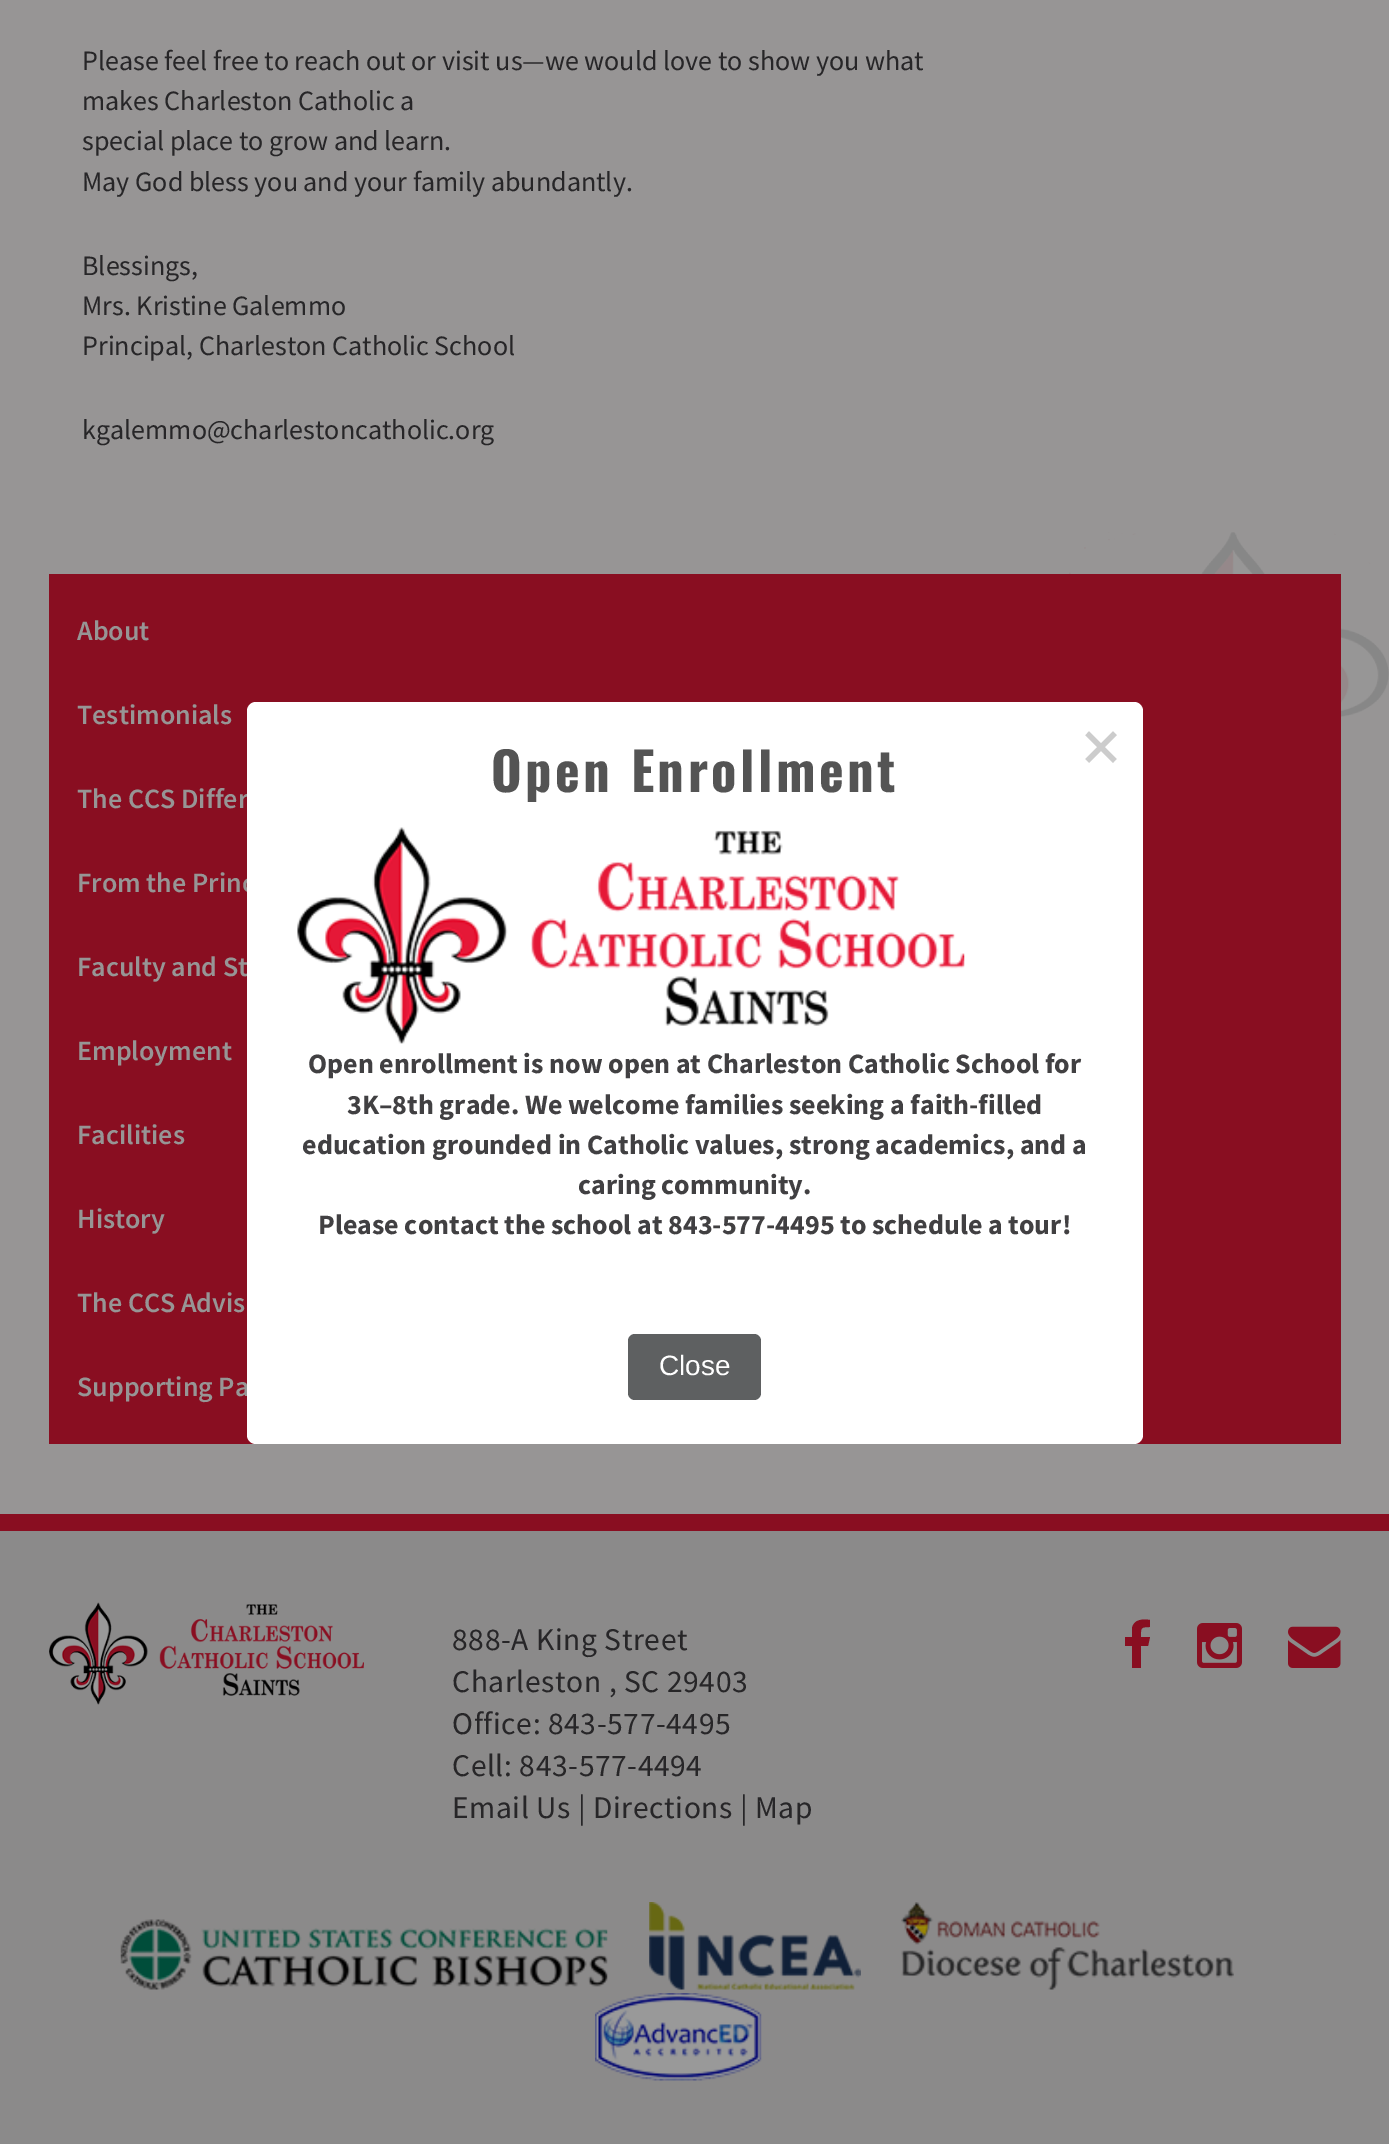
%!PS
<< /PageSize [1389 2144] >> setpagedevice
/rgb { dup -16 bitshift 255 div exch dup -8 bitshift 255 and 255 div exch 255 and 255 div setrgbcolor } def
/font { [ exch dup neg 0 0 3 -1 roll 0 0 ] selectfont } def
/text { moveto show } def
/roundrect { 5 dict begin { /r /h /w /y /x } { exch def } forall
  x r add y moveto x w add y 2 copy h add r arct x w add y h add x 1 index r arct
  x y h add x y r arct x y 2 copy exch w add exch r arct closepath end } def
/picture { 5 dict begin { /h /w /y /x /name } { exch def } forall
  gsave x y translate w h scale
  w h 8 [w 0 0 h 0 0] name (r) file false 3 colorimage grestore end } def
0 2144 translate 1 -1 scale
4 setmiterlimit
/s1 { /SourceSansPro-Regular 28 font 16#272628 rgb } def
/s2 { /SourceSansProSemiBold-SemiBold 28 font 16#979595 rgb } def
/s3 { /DejaVuSansMono-Regular 70 font 16#CCCCCC rgb } def
/s4 { /SourceSansPro-Bold 28 font 16#414042 rgb } def
/s5 { /LiberationSans-Regular 28 font 16#FFFFFF rgb } def
16#979595 rgb
0 0 1389 2144 rectfill
(pic1.raw) 1069 532 320 185 picture
s1
(Please feel free to reach out or visit us—we would love to show you what) 82 70 text
(makes Charleston Catholic a) 82 110 text
(special place to grow and learn.) 82 150 text
(May God bless you and your family abundantly.) 82 191 text
(Blessings,) 82 275 text
(Mrs. Kristine Galemmo) 82 315 text
(Principal, Charleston Catholic School) 82 355 text
(kgalemmo@charlestoncatholic.org) 82 439 text
16#890E21 rgb
49 574 1292 870 rectfill
s2
(About) 77 640 text
(Testimonials) 77 724 text
(The CCS Differ) 77 808 text
(From the Princ) 77 892 text
(Faculty and St) 77 976 text
(Employment) 77 1060 text
(Facilities) 77 1144 text
(History) 77 1228 text
(The CCS Advis) 77 1312 text
(Supporting Pa) 77 1396 text
16#8B8A8A rgb
0 1531 1389 613 rectfill
16#890E21 rgb
0 1514 1389 17 rectfill
(pic2.raw) 49 1602 315 103 picture
/SourceSansPro-Regular 31.5 font
16#272628 rgb
452 1650 moveto 0.6 0 (888-A King Street) ashow
452 1692 moveto 0.6 0 (Charleston , SC 29403) ashow
452 1734 moveto 0.6 0 (Office: 843-577-4495) ashow
452 1776 moveto 0.6 0 (Cell: 843-577-4494) ashow
452 1818 moveto 0.6 0 (Email Us | Directions | Map) ashow
16#890E21 rgb
1150 1620 moveto 1150 1627 lineto 1140 1627 1141 1628 1141 1637 curveto 1150 1637 lineto 1148 1646 lineto 1141 1646 lineto 1141 1668 lineto 1132 1668 lineto 1132 1646 lineto 1125 1646 lineto 1125 1637 lineto 1132 1637 lineto 1132 1628 lineto 1134 1619 1143 1619 1150 1620 curveto closepath fill
(pic3.raw) 1197 1623 45 45 picture
(pic4.raw) 1288 1626 53 42 picture
(pic5.raw) 120 1919 488 71 picture
(pic6.raw) 649 1902 212 88 picture
(pic7.raw) 901 1902 333 88 picture
(pic8.raw) 595 1993 167 88 picture
16#FFFFFF rgb
247 702 896 742 9 roundrect fill
/Oswald-Bold 52.5 font
16#545454 rgb
491 792 moveto 3.5 0 (Open Enrollment) ashow
s3
(×) 1080 769 text
(pic9.raw) 297 827 668 217 picture
s4
(Open enrollment is now open at Charleston Catholic School for) 308 1073 text
(3K–8th grade. We welcome families seeking a faith-filled) 347 1114 text
(education grounded in Catholic values, strong academics, and a) 302 1154 text
(caring community.) 578 1194 text
(Please contact the school at 843-577-4495 to schedule a tour!) 318 1234 text
16#5E6061 rgb
628 1334 133 66 7 roundrect fill
s5
(Close) 659 1375 text
showpage
